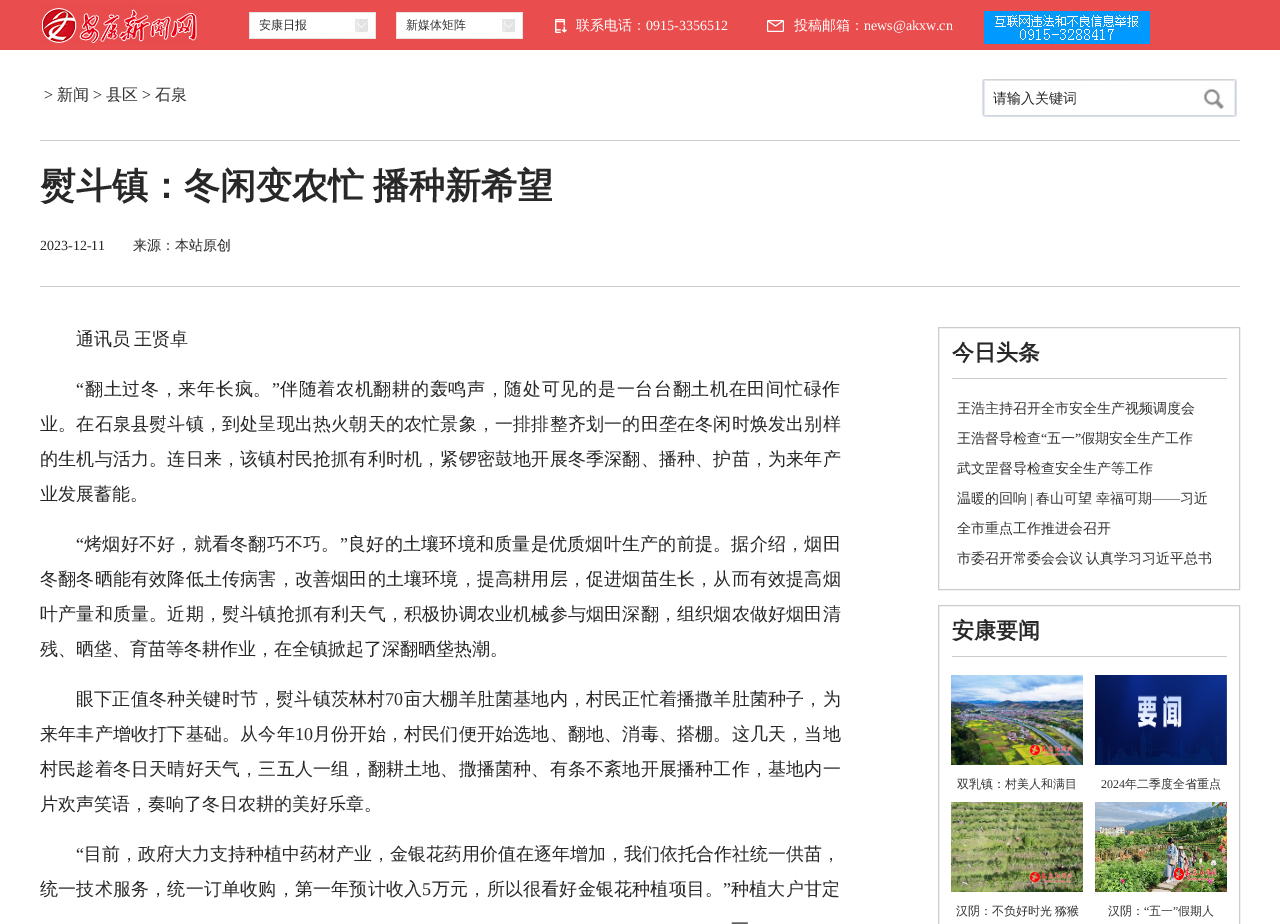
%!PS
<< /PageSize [1280 924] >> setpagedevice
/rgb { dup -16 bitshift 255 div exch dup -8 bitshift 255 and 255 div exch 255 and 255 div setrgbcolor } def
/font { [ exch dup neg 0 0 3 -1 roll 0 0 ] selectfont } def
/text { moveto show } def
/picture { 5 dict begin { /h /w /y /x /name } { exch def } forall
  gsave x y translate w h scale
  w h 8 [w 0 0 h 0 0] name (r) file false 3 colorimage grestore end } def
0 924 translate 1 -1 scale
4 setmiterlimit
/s1 { /WenQuanYiZenHei-Medium 12 font 16#333333 rgb } def
/s2 { /WenQuanYiZenHei-Medium 14 font 16#FFFFFF rgb } def
/s3 { /LiberationSerif-Regular 14 font 16#FFFFFF rgb } def
/s4 { /LiberationSerif-Regular 16 font 16#282828 rgb } def
/s5 { /WenQuanYiZenHei-Medium 16 font 16#333333 rgb } def
/s6 { /WenQuanYiZenHei-Medium 14 font 16#282828 rgb } def
/s7 { /LiberationSerif-Regular 14 font 16#282828 rgb } def
/s8 { /WenQuanYiZenHei-Medium 18 font 16#282828 rgb } def
/s9 { /LiberationSerif-Regular 18 font 16#282828 rgb } def
/s10 { /WenQuanYiZenHei-Bold 22 font 16#282828 rgb } def
/s11 { /WenQuanYiZenHei-Medium 14 font 16#333333 rgb } def
/s12 { /LiberationSerif-Regular 14 font 16#333333 rgb } def
/s13 { /LiberationSerif-Regular 12 font 16#333333 rgb } def
16#FFFFFF rgb
0 0 1280 924 rectfill
16#E94D4D rgb
0 0 1280 50 rectfill
(pic1.raw) 40 5 159 40 picture
(pic2.raw) 249 12 127 27 picture
s1
(安康日报) 259 29 text
(pic2.raw) 396 12 127 27 picture
(新媒体矩阵) 406 29 text
(pic3.raw) 555 19 12 14 picture
s2
(联系电话：) 576 30 text
s3
(0915-3356512) 646 30 text
(pic4.raw) 767 20 17 12 picture
s2
(投稿邮箱：) 794 30 text
s3
(news@akxw.cn) 864 30 text
(pic5.raw) 984 11 166 33 picture
s4
(>) 44 100 text
s5
(新闻) 57 100 text
s4
(>) 93 100 text
s5
(县区) 106 100 text
s4
(>) 142 100 text
s5
(石泉) 155 100 text
(pic6.raw) 982 79 255 38 picture
s6
(请输入关键词) 993 103 text
16#CCCCCC rgb
40 140 1200 1 rectfill
/WenQuanYiZenHei-Bold 36 font
16#282828 rgb
40 198 moveto -2 0 32 (熨斗镇：冬闲变农忙 播种新希望) widthshow
s7
(2023-12-11) 40 250 text
s6
(来源：本站原创) 133 250 text
16#CCCCCC rgb
40 286 1200 1 rectfill
/WenQuanYiZenHei-Medium 18 font
16#282828 rgb
76 345 moveto -1 0 32 (通讯员 王贤卓) widthshow
/LiberationSerif-Regular 18 font
76 395 moveto 0.7 0 (“) ashow
/WenQuanYiZenHei-Medium 18 font
85 395 moveto 0.7 0 (翻土过冬，来年长疯。) ashow
/LiberationSerif-Regular 18 font
272 395 moveto 0.7 0 (”) ashow
/WenQuanYiZenHei-Medium 18 font
280 395 moveto 0.7 0 (伴随着农机翻耕的轰鸣声，随处可见的是一台台翻土机在田间忙碌作) ashow
40 430 moveto 0.2 0 (业。在石泉县熨斗镇，到处呈现出热火朝天的农忙景象，一排排整齐划一的田垄在冬闲时焕发出别样) ashow
40 465 moveto 0.2 0 (的生机与活力。连日来，该镇村民抢抓有利时机，紧锣密鼓地开展冬季深翻、播种、护苗，为来年产) ashow
(业发展蓄能。) 40 500 text
/LiberationSerif-Regular 18 font
76 550 moveto 0.25 0 (“) ashow
/WenQuanYiZenHei-Medium 18 font
84 550 moveto 0.25 0 (烤烟好不好，就看冬翻巧不巧。) ashow
/LiberationSerif-Regular 18 font
340 550 moveto 0.25 0 (”) ashow
/WenQuanYiZenHei-Medium 18 font
348 550 moveto 0.25 0 (良好的土壤环境和质量是优质烟叶生产的前提。据介绍，烟田) ashow
40 585 moveto 0.2 0 (冬翻冬晒能有效降低土传病害，改善烟田的土壤环境，提高耕用层，促进烟苗生长，从而有效提高烟) ashow
40 620 moveto 0.2 0 (叶产量和质量。近期，熨斗镇抢抓有利天气，积极协调农业机械参与烟田深翻，组织烟农做好烟田清) ashow
(残、晒垡、育苗等冬耕作业，在全镇掀起了深翻晒垡热潮。) 40 655 text
76 705 moveto 0.2 0 (眼下正值冬种关键时节，熨斗镇茨林村) ashow
/LiberationSerif-Regular 18 font
385 705 moveto 0.2 0 (70) ashow
/WenQuanYiZenHei-Medium 18 font
404 705 moveto 0.2 0 (亩大棚羊肚菌基地内，村民正忙着播撒羊肚菌种子，为) ashow
40 740 moveto 0.2 0 (来年丰产增收打下基础。从今年) ashow
/LiberationSerif-Regular 18 font
295 740 moveto 0.2 0 (10) ashow
/WenQuanYiZenHei-Medium 18 font
313 740 moveto 0.2 0 (月份开始，村民们便开始选地、翻地、消毒、搭棚。这几天，当地) ashow
40 775 moveto 0.2 0 (村民趁着冬日天晴好天气，三五人一组，翻耕土地、撒播菌种、有条不紊地开展播种工作，基地内一) ashow
(片欢声笑语，奏响了冬日农耕的美好乐章。) 40 810 text
s9
(“) 76 860 text
s8
(目前，政府大力支持种植中药材产业，金银花药用价值在逐年增加，我们依托合作社统一供苗，) 84 860 text
40 895 moveto 0.2 0 (统一技术服务，统一订单收购，第一年预计收入) ashow
/LiberationSerif-Regular 18 font
422 895 moveto 0.2 0 (5) ashow
/WenQuanYiZenHei-Medium 18 font
432 895 moveto 0.2 0 (万元，所以很看好金银花种植项目。) ashow
/LiberationSerif-Regular 18 font
723 895 moveto 0.2 0 (”) ashow
/WenQuanYiZenHei-Medium 18 font
731 895 moveto 0.2 0 (种植大户甘定) ashow
731 930 moveto 0.2 0 (一) ashow
16#CCCCCC rgb
938.5 327.5 301 262 rectstroke
952 378 275 1 rectfill
s10
(今日头条) 952 360 text
s11
(王浩主持召开全市安全生产视频调度会) 957 413 text
(王浩督导检查) 957 443 text
s12
(“) 1041 443 text
s11
(五一) 1047 443 text
s12
(”) 1075 443 text
s11
(假期安全生产工作) 1081 443 text
(武文罡督导检查安全生产等工作) 957 473 text
(温暖的回响) 957 503 text
s12
(|) 1030 503 text
s11
(春山可望 幸福可期) 1036 503 text
s12
(——) 1152 503 text
s11
(习近) 1180 503 text
(全市重点工作推进会召开) 957 533 text
957 563 moveto -1 0 32 (市委召开常委会会议 认真学习习近平总书) widthshow
16#CCCCCC rgb
938.5 605.5 301 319 rectstroke
952 656 275 1 rectfill
s10
(安康要闻) 952 638 text
(pic7.raw) 951 675 132 90 picture
s1
(双乳镇：村美人和满目) 957 788 text
(pic8.raw) 1095 675 132 90 picture
s13
(2024) 1101 788 text
s1
(年二季度全省重点) 1125 788 text
(pic9.raw) 951 802 132 90 picture
956 915 moveto -1 0 32 (汉阴：不负好时光 猕猴) widthshow
(pic10.raw) 1095 802 132 90 picture
(汉阴：) 1108 915 text
s13
(“) 1144 915 text
s1
(五一) 1149 915 text
s13
(”) 1173 915 text
s1
(假期人) 1178 915 text
showpage
